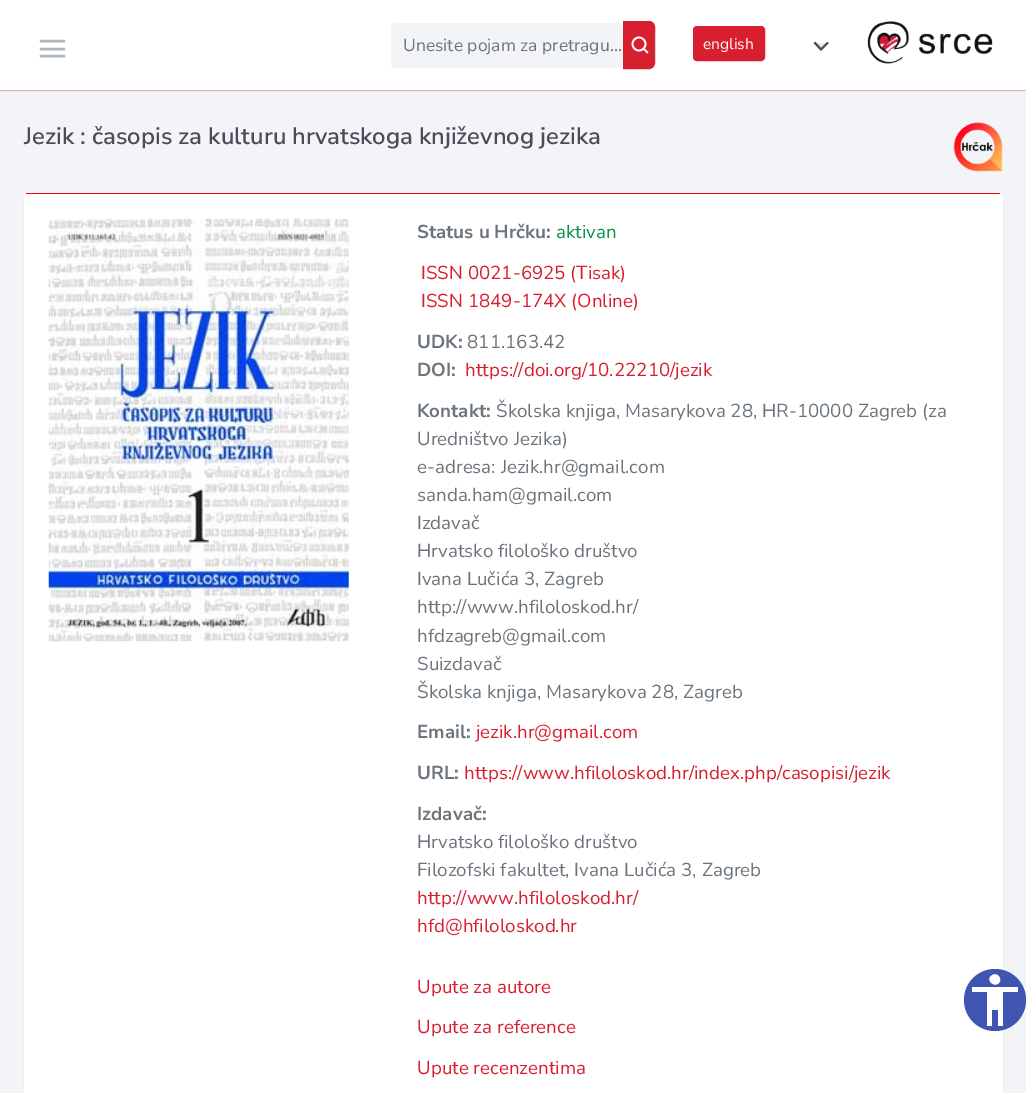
%!PS
<< /PageSize [1026 1093] /PageUsesTransparency true >> setpagedevice
/rgb { dup -16 bitshift 255 div exch dup -8 bitshift 255 and 255 div exch 255 and 255 div setrgbcolor } def
/font { [ exch dup neg 0 0 3 -1 roll 0 0 ] selectfont } def
/text { moveto show } def
/alpha { dup .setfillconstantalpha .setstrokeconstantalpha } def
/circle { newpath 0 360 arc closepath } def
/roundrect { 5 dict begin { /r /h /w /y /x } { exch def } forall
  x r add y moveto x w add y 2 copy h add r arct x w add y h add x 1 index r arct
  x y h add x y r arct x y 2 copy exch w add exch r arct closepath end } def
/shadow { 12 dict begin { /a /b /q /h /w /y /x } { exch def } forall gsave /was 0 def
  9 -2 -9 { dup b mul 4 div /e exch def 1 sub .425 mul 2.718 exch exp 1 add a .99 .min exch div /now exch def
    1 1 now sub 1 was sub div sub alpha /was now def
    w h .min e 2 mul add 0 gt { x e sub y e sub w e 2 mul add h e 2 mul add
      q e add b .6 mul add w h .min 2 div e add .min 0 .max roundrect fill } if } for grestore end } def
/picture { 5 dict begin { /h /w /y /x /name } { exch def } forall
  gsave x y translate w h scale
  w h 8 [w 0 0 h 0 0] name (r) file false 3 colorimage grestore end } def
0 .pushpdf14devicefilter
0 1093 translate 1 -1 scale
4 setmiterlimit
/s1 { /NunitoSans-Regular 17.5 font 16#6C757D rgb } def
/s2 { /NunitoSans-Regular 15.5 font 16#FFFFFF rgb } def
/s3 { /NunitoSans-SemiBold 23.75 font 16#4B4B5A rgb } def
/s4 { /NunitoSans-Bold 18.75 font 16#6C757D rgb } def
/s5 { /NunitoSans-Regular 18.75 font 16#039646 rgb } def
/s6 { /NunitoSans-Regular 18.75 font 16#D81F30 rgb } def
/s7 { /NunitoSans-Regular 18.75 font 16#6C757D rgb } def
16#F3F4F7 rgb
0 0 1026 1093 rectfill
16#F1B1B6 rgb
0 90 1026 1 rectfill
16#4B4B5A rgb
0 1 1026 90 0 0.5 0.07 shadow
16#FFFFFF rgb
0 0 1026 90 rectfill
16#ADB5BD rgb
2.5 setlinewidth
1 setlinecap
1 setlinejoin
41 49 moveto 64 49 lineto 41 41 moveto 64 41 lineto 41 56 moveto 64 56 lineto stroke
16#F3F4F7 rgb
391 23 232 45 5 roundrect fill
s1
(Unesite pojam za pretragu...) 403 51 text
16#D81F30 rgb
623.5 21.5 moveto 649 21.5 lineto 652 21.5 654.5 24 654.5 27 curveto 654.5 63 lineto 654.5 66 652 68.5 649 68.5 curveto 623.5 68.5 lineto closepath gsave fill grestore
1 setlinewidth
0 setlinecap
0 setlinejoin
stroke
16#AE4350 rgb
654 33 1 25 rectfill
16#FFFFFF rgb
1.7 setlinewidth
639 44 6.5 circle stroke
1 setlinecap
1 setlinejoin
647.5 52.5 moveto 644 49 lineto stroke
16#D81F30 rgb
693.5 26.5 71 34 3.5 roundrect gsave fill grestore
1 setlinewidth
0 setlinecap
0 setlinejoin
stroke
s2
(english) 703 49 text
16#E9E9EB rgb
815 43 moveto 821 49.5 lineto 827.5 43 lineto gsave fill grestore
16#4B4B5A rgb
2.1 setlinewidth
1 setlinecap
1 setlinejoin
stroke
(pic1.raw) 867 21 126 43 picture
s3
(Jezik : časopis za kulturu hrvatskoga književnog jezika) 24 144 text
(pic2.raw) 953 122 50 50 picture
24 194 979 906 5 0.5 0.07 shadow
16#FFFFFF rgb
24 193 979 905 5 roundrect fill
16#FF0000 rgb
26 193 974 1 rectfill
(pic3.raw) 48 218 301 424 picture
s4
(Status u Hrčku:) 417 238 text
s5
(aktivan) 556 238 text
s6
(ISSN 0021-6925 \(Tisak\)) 421 279 text
(ISSN 1849-174X \(Online\)) 421 307 text
s4
(UDK:) 417 348 text
s7
(811.163.42) 467 348 text
s4
(DOI:) 417 376 text
s6
(https://doi.org/10.22210/jezik) 465 376 text
s4
(Kontakt:) 417 417 text
s7
(Školska knjiga, Masarykova 28, HR-10000 Zagreb \(za) 496 417 text
(Uredništvo Jezika\)) 417 445 text
(e-adresa: Jezik.hr@gmail.com) 417 473 text
(sanda.ham@gmail.com) 417 501 text
(Izdavač) 417 529 text
(Hrvatsko filološko društvo) 417 557 text
(Ivana Lučića 3, Zagreb) 417 585 text
(http://www.hfiloloskod.hr/) 417 613 text
(hfdzagreb@gmail.com) 417 642 text
(Suizdavač) 417 670 text
(Školska knjiga, Masarykova 28, Zagreb) 417 698 text
s4
(Email:) 417 738 text
s6
(jezik.hr@gmail.com) 476 738 text
s4
(URL:) 417 779 text
s6
(https://www.hfiloloskod.hr/index.php/casopisi/jezik) 464 779 text
s4
(Izdavač:) 417 820 text
s7
(Hrvatsko filološko društvo) 417 848 text
(Filozofski fakultet, Ivana Lučića 3, Zagreb) 417 876 text
s6
(http://www.hfiloloskod.hr/) 417 904 text
(hfd@hfiloloskod.hr) 417 932 text
(Upute za autore) 417 993 text
(Upute za reference) 417 1033 text
(Upute recenzentima) 417 1074 text
16#4054B2 rgb
995 1000 31 circle fill
16#FFFFFF rgb
1018 992 moveto 1003 992 lineto 1003 1026 lineto 998 1026 lineto 998 1010 lineto 992 1010 lineto 992 1026 lineto 987 1026 lineto 987 992 lineto 972 992 lineto 972 987 lineto 1018 987 lineto closepath 991 976 moveto 996 971 1003 978 999 983 curveto 994 988 986 980 991 976 curveto closepath fill
.poppdf14devicefilter showpage
